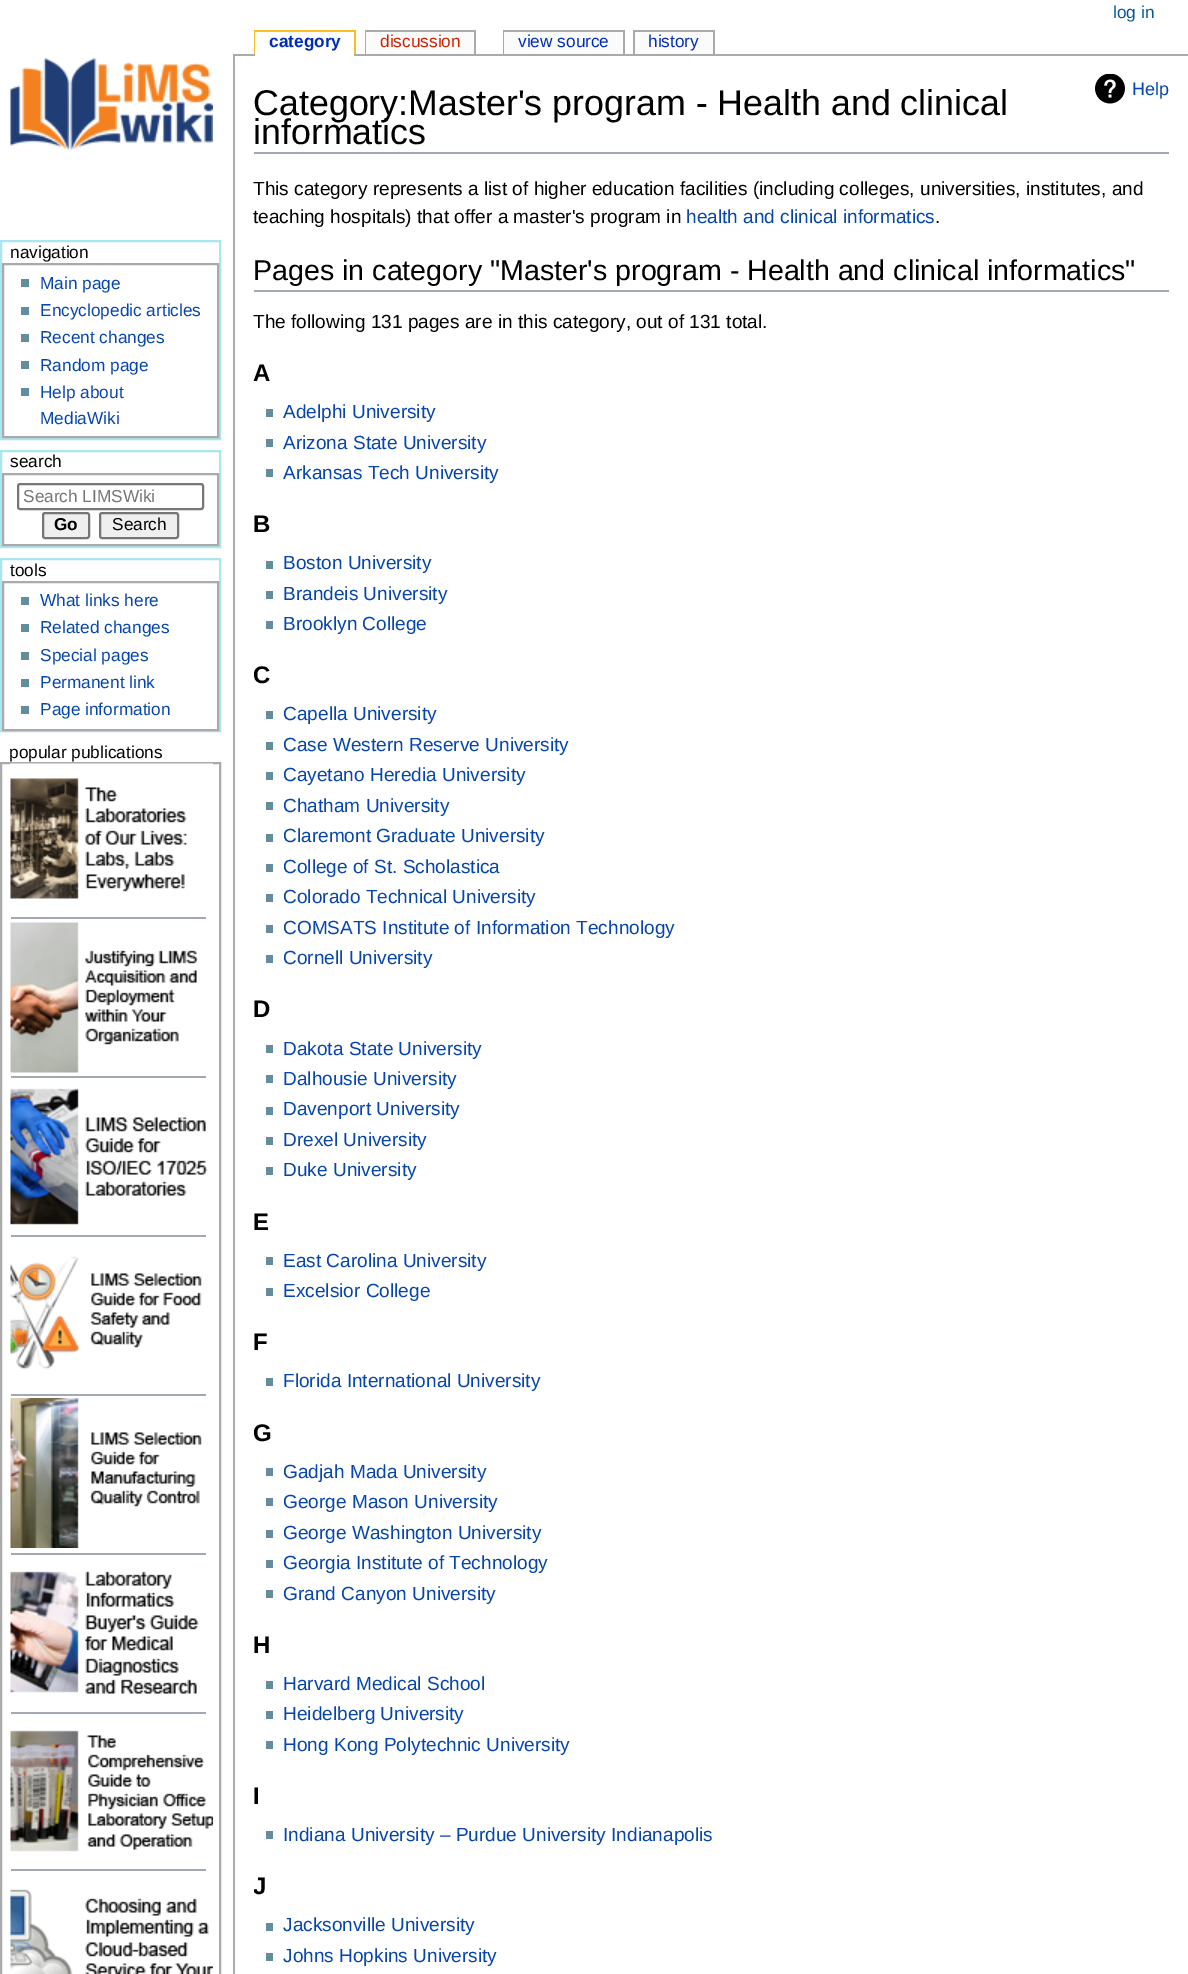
%!PS
<< /PageSize [1188 1974] >> setpagedevice
/rgb { dup -16 bitshift 255 div exch dup -8 bitshift 255 and 255 div exch 255 and 255 div setrgbcolor } def
/font { [ exch dup neg 0 0 3 -1 roll 0 0 ] selectfont } def
/text { moveto show } def
/roundrect { 5 dict begin { /r /h /w /y /x } { exch def } forall
  x r add y moveto x w add y 2 copy h add r arct x w add y h add x 1 index r arct
  x y h add x y r arct x y 2 copy exch w add exch r arct closepath end } def
/picture { 5 dict begin { /h /w /y /x /name } { exch def } forall
  gsave x y translate w h scale
  w h 8 [w 0 0 h 0 0] name (r) file false 3 colorimage grestore end } def
0 1974 translate 1 -1 scale
4 setmiterlimit
/s1 { /LiberationSans-Regular 17.25 font 16#005896 rgb } def
/s2 { /LiberationSans-Bold 17.25 font 16#002BB8 rgb } def
/s3 { /LiberationSans-Regular 17.25 font 16#CC2200 rgb } def
/s4 { /LiberationSans-Regular 17.25 font 16#002BB8 rgb } def
/s5 { /LiberationSans-Regular 17.25 font 16#000000 rgb } def
/s6 { /LiberationSans-Regular 17.25 font 16#0645AD rgb } def
/s7 { /LiberationSans-Regular 17.25 font 16#757575 rgb } def
/s8 { /LiberationSans-Bold 17.25 font 16#000000 rgb } def
/s9 { /LiberationSans-Regular 35.8 font 16#000000 rgb } def
/s10 { /LiberationSans-Regular 18 font 16#0645AD rgb } def
/s11 { /LiberationSans-Regular 19.05 font 16#000000 rgb } def
/s12 { /LiberationSans-Regular 19.05 font 16#0645AD rgb } def
/s13 { /LiberationSans-Regular 28.6 font 16#000000 rgb } def
/s14 { /LiberationSans-Bold 24 font 16#000000 rgb } def
16#FFFFFF rgb
0 0 1188 1974 rectfill
s1
(log in) 1113 18 text
16#FABD23 rgb
254 30 102 2 rectfill
254 30 2 24 rectfill
16#AAAAAA rgb
233 54 955 2 rectfill
16#FFFFFF rgb
255 32 99 24 rectfill
s2
(category) 269 47 text
16#FABD23 rgb
354 30 2 24 rectfill
16#AAAAAA rgb
365 30 111 2 rectfill
365 30 2 24 rectfill
16#FBFBFB rgb
366 32 108 22 rectfill
s3
(discussion) 380 47 text
16#AAAAAA rgb
474 30 2 24 rectfill
503 30 121 2 rectfill
503 30 2 24 rectfill
16#FBFBFB rgb
504 32 119 22 rectfill
s4
(view source) 518 47 text
16#AAAAAA rgb
623 30 2 24 rectfill
16#FBFBFB rgb
635 32 78 22 rectfill
s4
(history) 648 47 text
16#AAAAAA rgb
633 30 81 2 rectfill
713 30 2 24 rectfill
633 30 2 24 rectfill
(pic1.raw) 10 58 203 93 picture
16#AAE6EF rgb
2 setlinewidth
1 241 219 198 rectstroke
s5
(navigation) 10 258 text
16#AAAAAA rgb
3 264 215 173 rectstroke
16#638C9C rgb
21 279 8 8 rectfill
s6
(Main page) 40 289 text
16#638C9C rgb
21 307 8 8 rectfill
s6
(Encyclopedic articles) 40 316 text
16#638C9C rgb
21 334 8 8 rectfill
s6
(Recent changes) 40 343 text
16#638C9C rgb
21 361 8 8 rectfill
s6
(Random page) 40 371 text
16#638C9C rgb
21 388 8 8 rectfill
s6
(Help about) 40 398 text
(MediaWiki) 40 424 text
16#AAE6EF rgb
1 451 219 96 rectstroke
s5
(search) 10 467 text
16#AAAAAA rgb
3 474 215 71 rectstroke
16#767676 rgb
18 484 185 25 2 roundrect stroke
s7
(Search LIMSWiki) 23 502 text
16#EFEFEF rgb
43 513 46 25 2 roundrect gsave fill grestore
16#767676 rgb
stroke
s8
(Go) 54 530 text
16#EFEFEF rgb
100 513 78 25 2 roundrect gsave fill grestore
16#767676 rgb
stroke
s5
(Search) 112 530 text
16#AAE6EF rgb
1 559 219 172 rectstroke
s5
(tools) 10 576 text
16#AAAAAA rgb
3 582 215 148 rectstroke
16#638C9C rgb
21 597 8 8 rectfill
s6
(What links here) 40 606 text
16#638C9C rgb
21 624 8 8 rectfill
s6
(Related changes) 40 633 text
16#638C9C rgb
21 652 8 8 rectfill
s6
(Special pages) 40 661 text
16#638C9C rgb
21 679 8 8 rectfill
s6
(Permanent link) 40 688 text
16#638C9C rgb
21 706 8 8 rectfill
s6
(Page information) 40 715 text
s5
(popular publications) 9 758 text
16#AAAAAA rgb
1 763 219 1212 rectstroke
(pic2.raw) 10 763 203 136 picture
16#A2A9B1 rgb
11 917 195 2 rectfill
(pic3.raw) 10 922 189 151 picture
11 1076 195 2 rectfill
(pic4.raw) 10 1088 198 137 picture
11 1235 195 2 rectfill
(pic5.raw) 10 1256 192 114 picture
11 1394 195 2 rectfill
(pic6.raw) 10 1398 192 150 picture
11 1553 195 2 rectfill
(pic7.raw) 10 1571 189 123 picture
11 1712 195 2 rectfill
(pic8.raw) 10 1730 203 122 picture
11 1869 195 2 rectfill
(pic9.raw) 10 1889 203 85 picture
16#AAAAAA rgb
233 54 2 1920 rectfill
16#A2A9B1 rgb
254 152 915 2 rectfill
s9
(Category:Master's program - Health and clinical) 253 115 text
(informatics) 253 144 text
(pic10.raw) 1095 74 30 30 picture
s10
(Help) 1132 95 text
s11
(This category represents a list of higher education facilities \(including colleges, universities, institutes, and) 253 195 text
(teaching hospitals\) that offer a master's program in) 253 223 text
s12
(health and clinical informatics) 686 223 text
s11
(.) 935 223 text
16#A2A9B1 rgb
254 290 915 2 rectfill
s13
(Pages in category "Master's program - Health and clinical informatics") 253 280 text
s11
(The following 131 pages are in this category, out of 131 total.) 253 328 text
s14
(A) 253 381 text
16#638C9C rgb
266 409 7 8 rectfill
s12
(Adelphi University) 283 418 text
16#638C9C rgb
266 439 7 8 rectfill
s12
(Arizona State University) 283 449 text
16#638C9C rgb
266 469 7 8 rectfill
s12
(Arkansas Tech University) 283 479 text
s14
(B) 253 532 text
16#638C9C rgb
266 561 7 8 rectfill
s12
(Boston University) 283 569 text
16#638C9C rgb
266 591 7 8 rectfill
s12
(Brandeis University) 283 600 text
16#638C9C rgb
266 621 7 8 rectfill
s12
(Brooklyn College) 283 630 text
s14
(C) 253 683 text
16#638C9C rgb
266 711 7 8 rectfill
s12
(Capella University) 283 720 text
16#638C9C rgb
266 742 7 8 rectfill
s12
(Case Western Reserve University) 283 751 text
16#638C9C rgb
266 772 7 8 rectfill
s12
(Cayetano Heredia University) 283 781 text
16#638C9C rgb
266 802 7 8 rectfill
s12
(Chatham University) 283 812 text
16#638C9C rgb
266 834 7 8 rectfill
s12
(Claremont Graduate University) 283 842 text
16#638C9C rgb
266 864 7 8 rectfill
s12
(College of St. Scholastica) 283 873 text
16#638C9C rgb
266 894 7 8 rectfill
s12
(Colorado Technical University) 283 903 text
16#638C9C rgb
266 925 7 8 rectfill
s12
(COMSATS Institute of Information Technology) 283 934 text
16#638C9C rgb
266 955 7 8 rectfill
s12
(Cornell University) 283 964 text
s14
(D) 253 1017 text
16#638C9C rgb
266 1045 7 8 rectfill
s12
(Dakota State University) 283 1055 text
16#638C9C rgb
266 1075 7 8 rectfill
s12
(Dalhousie University) 283 1085 text
16#638C9C rgb
266 1107 7 8 rectfill
s12
(Davenport University) 283 1115 text
16#638C9C rgb
266 1137 7 8 rectfill
s12
(Drexel University) 283 1146 text
16#638C9C rgb
266 1167 7 8 rectfill
s12
(Duke University) 283 1176 text
s14
(E) 253 1230 text
16#638C9C rgb
266 1257 7 8 rectfill
s12
(East Carolina University) 283 1267 text
16#638C9C rgb
266 1288 7 8 rectfill
s12
(Excelsior College) 283 1297 text
s14
(F) 253 1350 text
16#638C9C rgb
266 1378 7 8 rectfill
s12
(Florida International University) 283 1387 text
s14
(G) 253 1441 text
16#638C9C rgb
266 1468 7 8 rectfill
s12
(Gadjah Mada University) 283 1478 text
16#638C9C rgb
266 1498 7 8 rectfill
s12
(George Mason University) 283 1508 text
16#638C9C rgb
266 1530 7 8 rectfill
s12
(George Washington University) 283 1539 text
16#638C9C rgb
266 1560 7 8 rectfill
s12
(Georgia Institute of Technology) 283 1569 text
16#638C9C rgb
266 1590 7 8 rectfill
s12
(Grand Canyon University) 283 1600 text
s14
(H) 253 1653 text
16#638C9C rgb
266 1681 7 8 rectfill
s12
(Harvard Medical School) 283 1690 text
16#638C9C rgb
266 1711 7 8 rectfill
s12
(Heidelberg University) 283 1720 text
16#638C9C rgb
266 1741 7 8 rectfill
s12
(Hong Kong Polytechnic University) 283 1751 text
s14
(I) 253 1804 text
16#638C9C rgb
266 1831 7 8 rectfill
s12
(Indiana University – Purdue University Indianapolis) 283 1841 text
gsave
254 1860 915 45 rectclip
s14
(J) 253 1894 text
grestore
16#638C9C rgb
266 1923 7 8 rectfill
s12
(Jacksonville University) 283 1931 text
16#638C9C rgb
266 1953 7 8 rectfill
s12
(Johns Hopkins University) 283 1962 text
showpage
